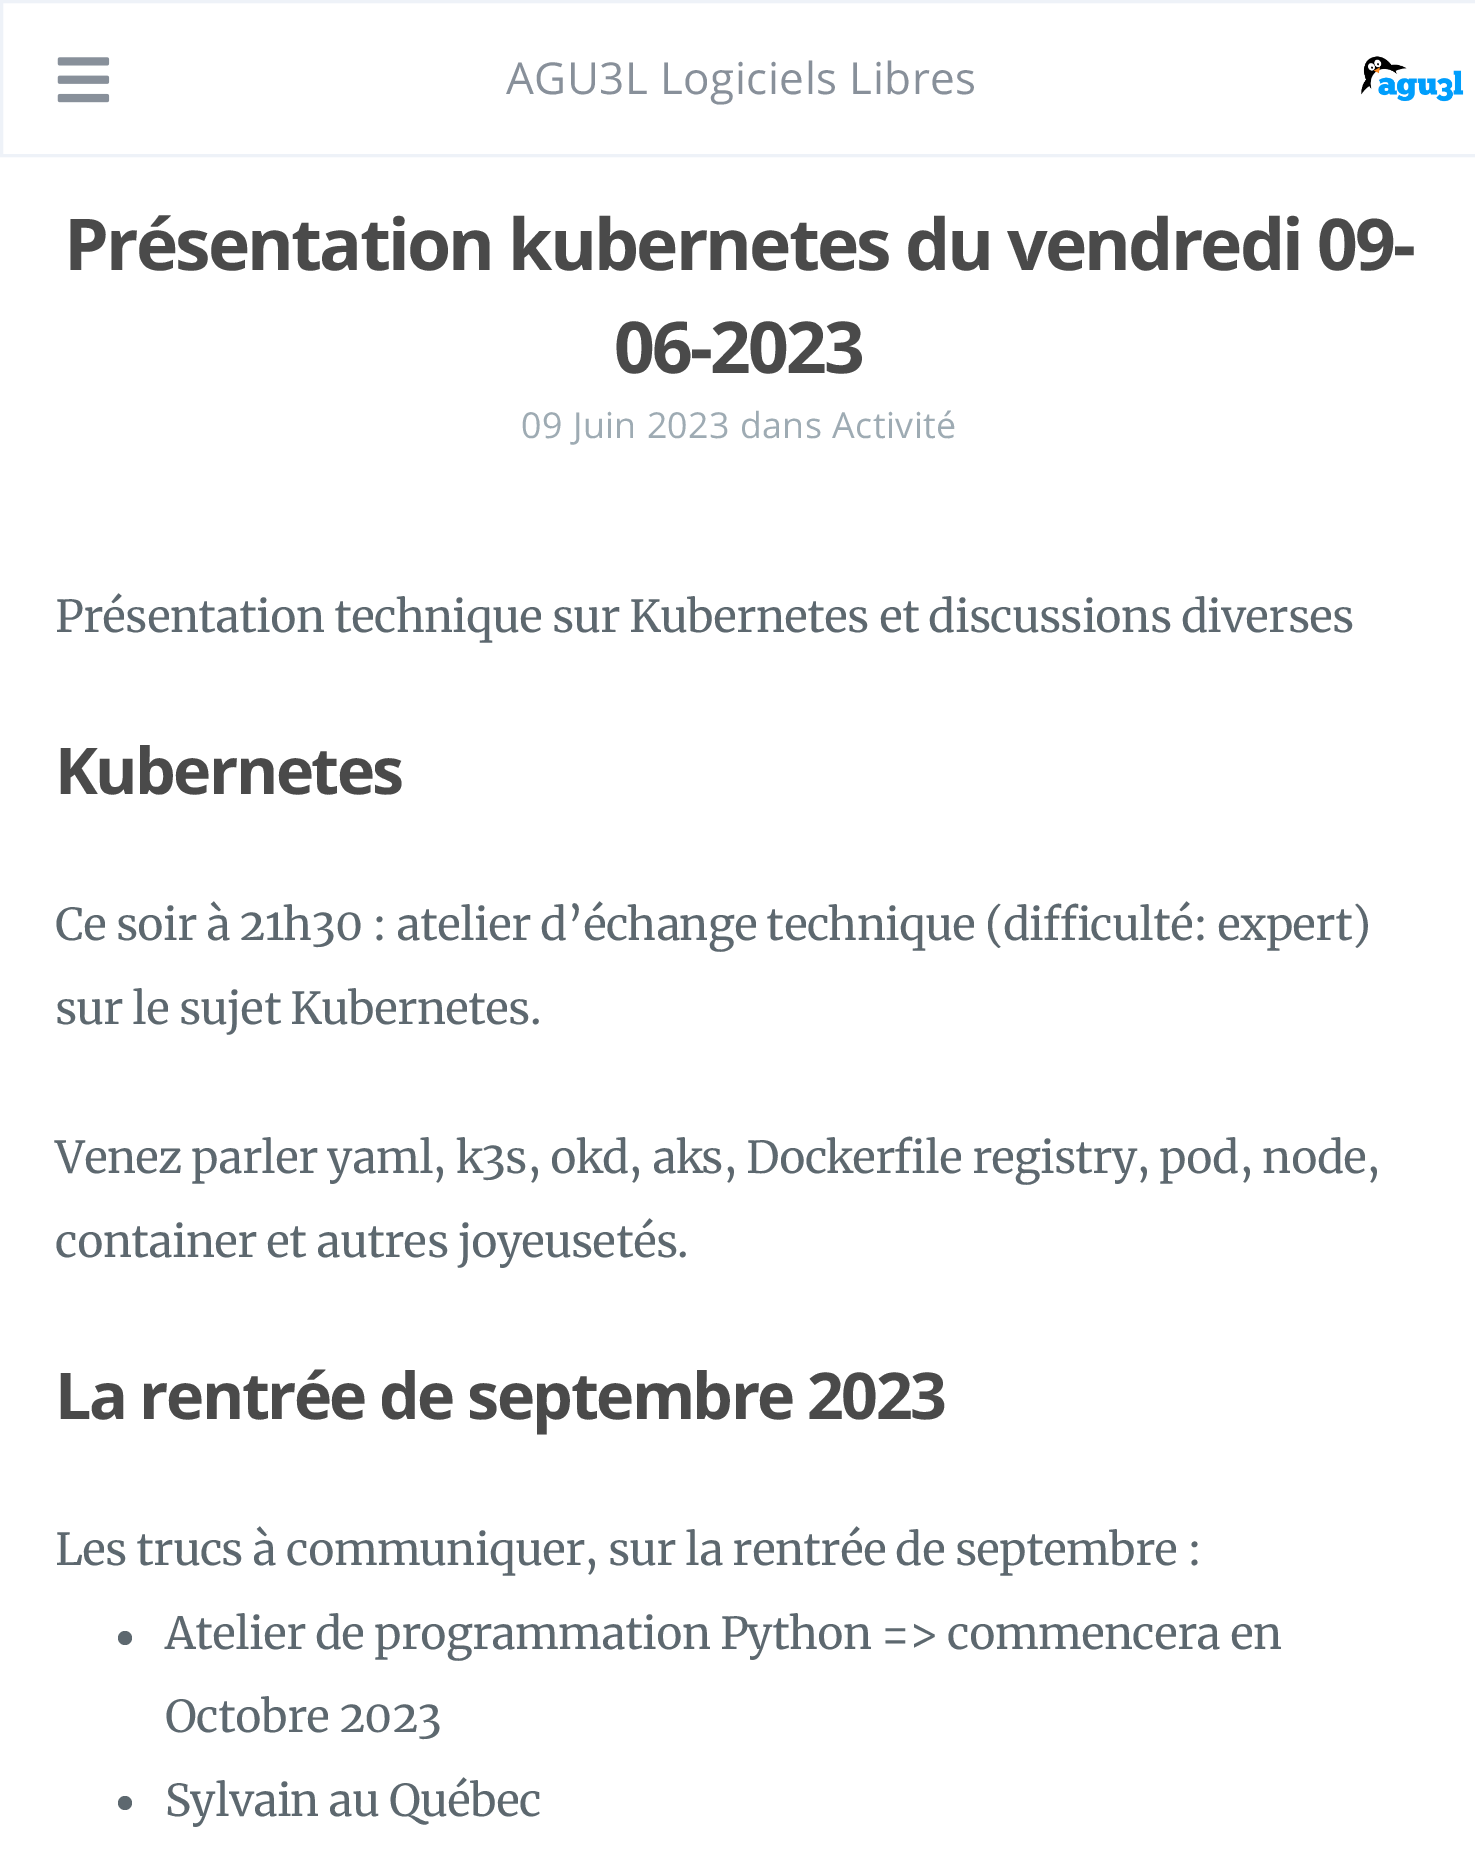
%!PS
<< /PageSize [1475 1861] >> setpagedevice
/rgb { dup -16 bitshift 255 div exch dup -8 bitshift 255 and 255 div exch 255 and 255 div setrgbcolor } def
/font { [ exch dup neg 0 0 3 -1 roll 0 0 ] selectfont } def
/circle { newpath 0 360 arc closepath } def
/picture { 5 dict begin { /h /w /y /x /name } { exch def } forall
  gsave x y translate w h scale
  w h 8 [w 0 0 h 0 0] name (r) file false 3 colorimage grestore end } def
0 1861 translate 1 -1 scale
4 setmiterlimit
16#FFFFFF rgb
0 0 1475 1861 rectfill
16#EEF2F8 rgb
3 setlinewidth
1.5 1.5 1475 154 rectstroke
(pic1.raw) 57 57 53 46 picture
/OpenSans-Regular 44 font
16#88909A rgb
506 94 moveto 0.45 0 (AGU3L Logiciels Libres) ashow
(pic2.raw) 1361 56 103 46 picture
/OpenSans-Bold 71.5 font
16#4A4A4A rgb
64 270 moveto -2.85 0 (Présentation kubernetes du vendredi 09-) ashow
614 373 moveto -2.85 0 (06-2023) ashow
/OpenSans-Regular 35.75 font
16#9EABB3 rgb
521 438 moveto 0.45 0 (09 Juin 2023 dans Activité) ashow
/Merriweather-Regular 44 font
16#5D686F rgb
55 632 moveto -0.82 0 (Présentation technique sur Kubernetes et discussions diverses) ashow
/OpenSans-Bold 64.6 font
16#4A4A4A rgb
55 794 moveto -2.6 0 (Kubernetes) ashow
/Merriweather-Regular 44 font
16#5D686F rgb
55 940 moveto -0.82 0 (Ce soir à 21h30 : atelier d’échange technique \(difficulté: expert\)) ashow
55 1024 moveto -0.82 0 (sur le sujet Kubernetes.) ashow
55 1173 moveto -0.82 0 (Venez parler yaml, k3s, okd, aks, Dockerfile registry, pod, node,) ashow
55 1257 moveto -0.82 0 (container et autres joyeusetés.) ashow
/OpenSans-Bold 64.6 font
16#4A4A4A rgb
55 1419 moveto -2.6 0 (La rentrée de septembre 2023) ashow
/Merriweather-Regular 44 font
16#5D686F rgb
55 1565 moveto -0.82 0 (Les trucs à communiquer, sur la rentrée de septembre :) ashow
125 1638 7 circle fill
165 1649 moveto -0.82 0 (Atelier de programmation Python => commencera en) ashow
165 1732 moveto -0.82 0 (Octobre 2023) ashow
125 1803 7 circle fill
165 1816 moveto -0.82 0 (Sylvain au Québec) ashow
showpage
